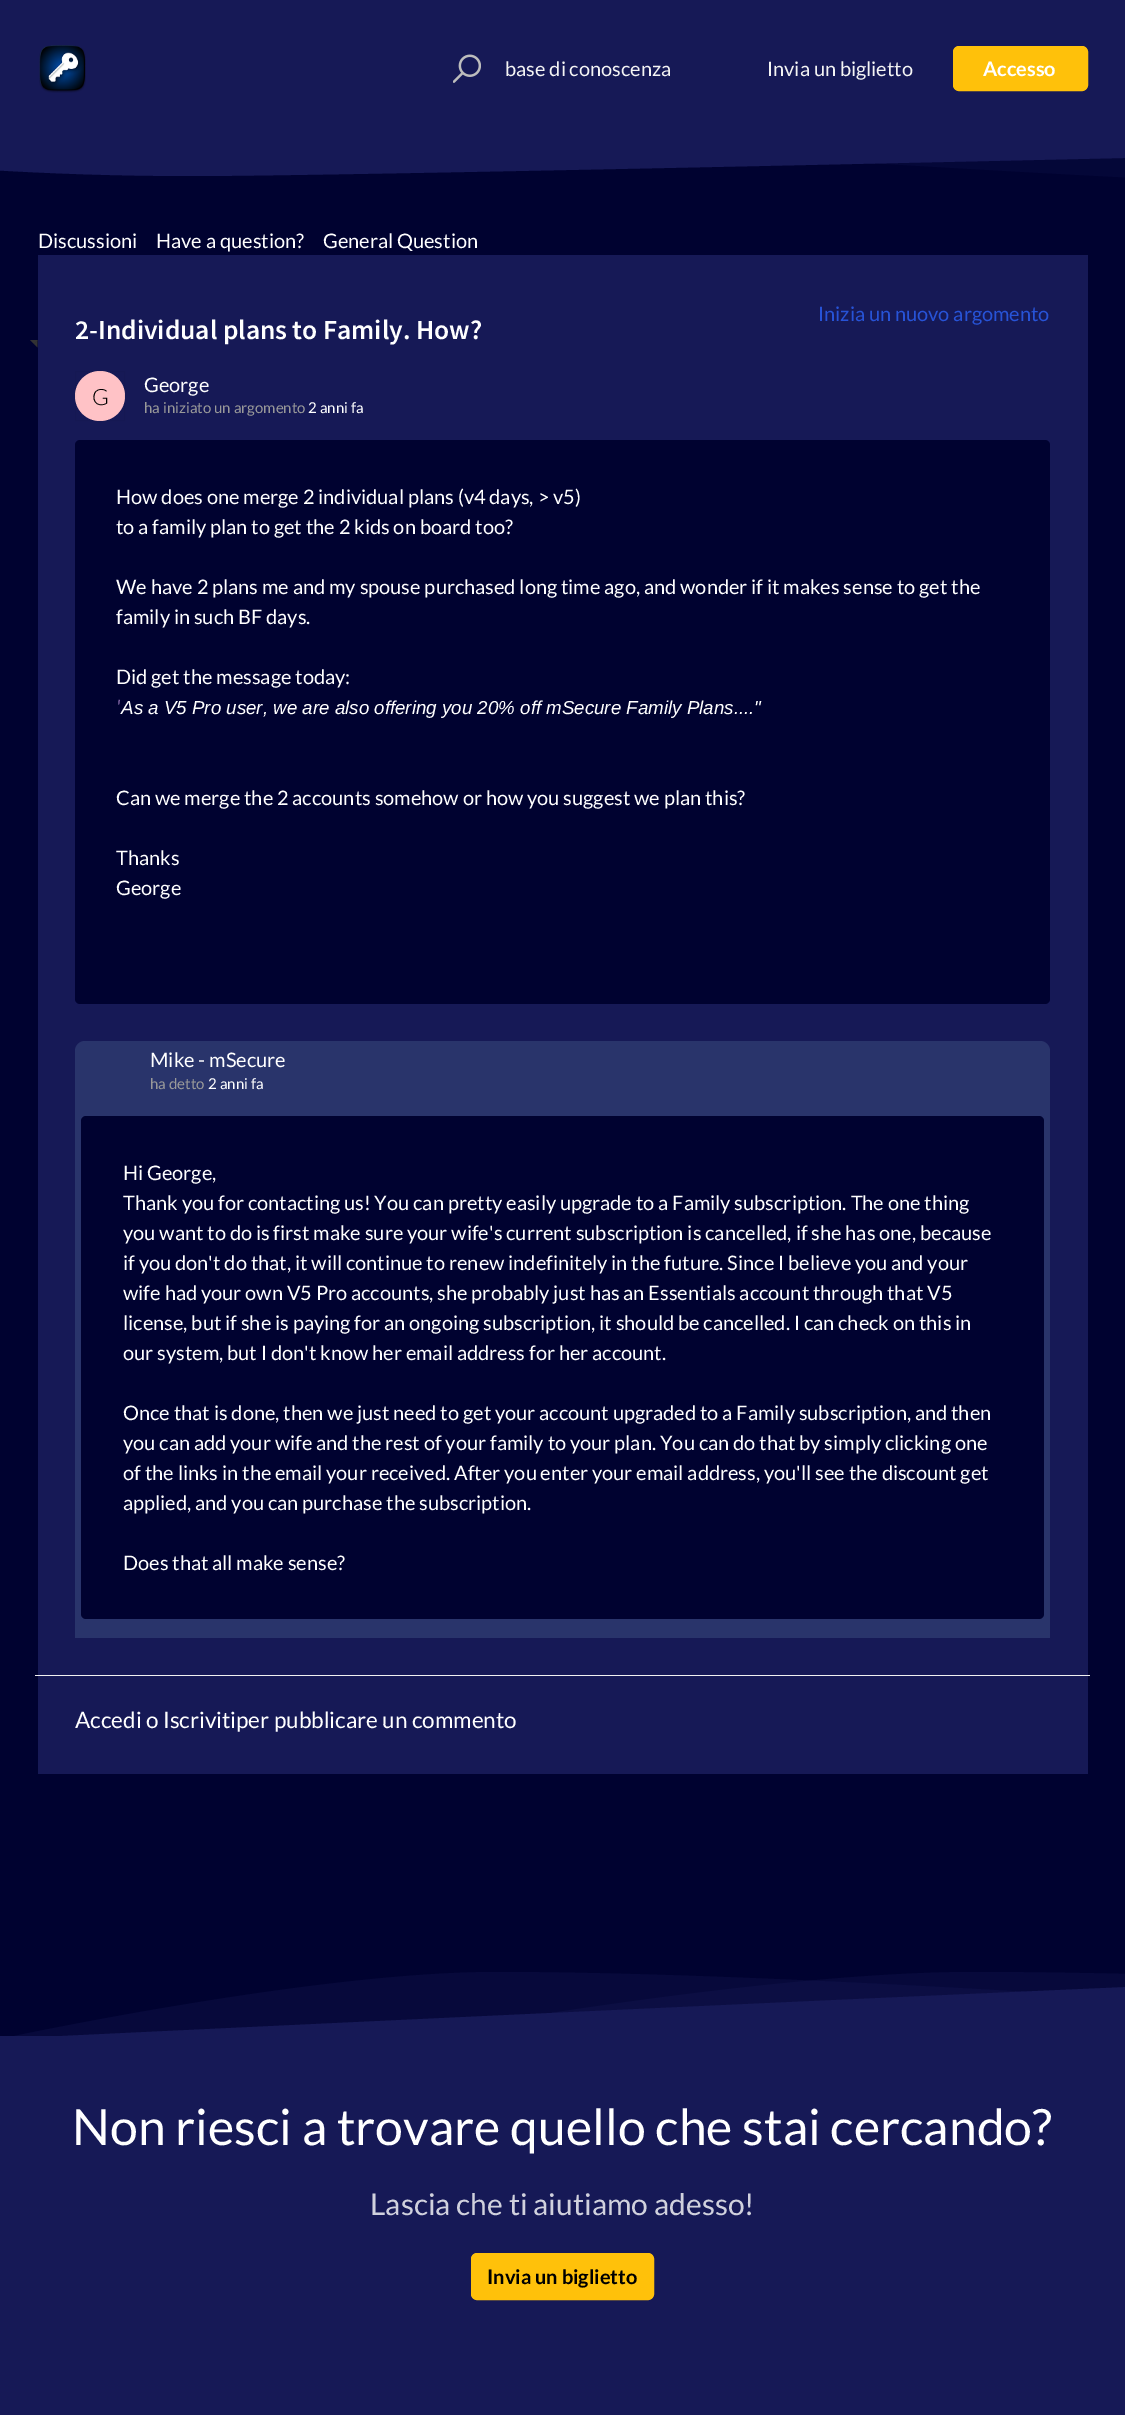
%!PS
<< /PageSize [1125 2415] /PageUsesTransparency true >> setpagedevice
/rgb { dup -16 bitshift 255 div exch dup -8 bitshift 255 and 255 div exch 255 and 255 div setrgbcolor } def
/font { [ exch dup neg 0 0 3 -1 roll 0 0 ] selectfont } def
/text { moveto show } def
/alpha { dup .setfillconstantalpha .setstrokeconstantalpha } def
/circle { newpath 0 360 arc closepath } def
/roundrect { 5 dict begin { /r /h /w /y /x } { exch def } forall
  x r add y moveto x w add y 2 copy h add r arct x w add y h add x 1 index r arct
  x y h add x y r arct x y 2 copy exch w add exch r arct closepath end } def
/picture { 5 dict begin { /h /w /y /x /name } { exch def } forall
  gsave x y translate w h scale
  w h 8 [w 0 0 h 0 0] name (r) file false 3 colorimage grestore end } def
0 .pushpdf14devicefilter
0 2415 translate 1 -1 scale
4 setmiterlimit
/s1 { /Lato-Regular 20 font 16#F4F4F4 rgb } def
/s2 { /Lato-Bold 20 font 16#FFFFFF rgb } def
/s3 { /Lato-Regular 20 font 16#FFFFFF rgb } def
/s4 { /Lato-Regular 20 font 16#2753D7 rgb } def
/s5 { /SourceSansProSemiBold-SemiBold 27.5 font 16#FFFFFF rgb } def
/s6 { /Lato-Light 22.5 font 16#000000 rgb } def
/s7 { /Lato-Regular 15 font 16#999999 rgb } def
/s8 { /Lato-Regular 15 font 16#FFFFFF rgb } def
/s9 { /Lato-Italic 20 font 16#8064A2 rgb } def
/s10 { /LiberationSans-Italic 18.75 font 16#FFFFFF rgb } def
/s11 { /Lato-Regular 22.5 font 16#FFFFFF rgb } def
/s12 { /Lato-Regular 50 font 16#FFFFFF rgb } def
/s13 { /Lato-Regular 30 font 16#D0D1DD rgb } def
/s14 { /Lato-Bold 20 font 16#000000 rgb } def
16#000230 rgb
0 0 1125 2415 rectfill
16#161956 rgb
0 0 1125 136 rectfill
(pic1.raw) 39 45 47 48 picture
(pic2.raw) 453 54 28 29 picture
s1
(base di conoscenza) 505 76 text
(Invia un biglietto) 767 76 text
16#FFC10A rgb
953.5 46.5 134 44 5.5 roundrect gsave fill grestore
stroke
s2
(Accesso) 983 76 text
16#161956 rgb
192 176 moveto 416 176 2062 136 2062 136 curveto -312 136 lineto -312 136 -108 176 192 176 curveto closepath fill
gsave
0 136 1125 59 rectclip
0.2 alpha
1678 195 moveto 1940 195 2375 100 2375 100 curveto 0 100 lineto 0 100 1121 195 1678 195 curveto closepath fill
grestore
s3
(Discussioni) 38 248 text
(Have a question?) 156 248 text
(General Question) 323 248 text
16#161956 rgb
38 255 1050 1519 rectfill
s4
(Inizia un nuovo argomento) 818 321 text
16#333333 rgb
30 340 moveto 37.5 340 lineto 34 344 lineto closepath fill
37.5 340 moveto 37.5 347.5 lineto 34 344 lineto closepath fill
s5
(2-Individual plans to Family. How?) 75 339 text
16#FFC2C6 rgb
100 396 25 circle fill
0.04 alpha
16#000000 rgb
75.5 371.5 49 49 rectstroke
1 alpha
s6
(G) 92 405 text
s3
(George) 144 392 text
s7
(ha iniziato un argomento) 144 413 text
s8
(2 anni fa) 308 413 text
16#000230 rgb
75 440 975 564 5 roundrect fill
s3
(How does one merge 2 individual plans \(v4 days, > v5\)) 116 504 text
(to a family plan to get the 2 kids on board too?) 116 534 text
(We have 2 plans me and my spouse purchased long time ago, and wonder if it makes sense to get the) 116 594 text
(family in such BF days.) 116 624 text
(Did get the message today:) 116 684 text
s9
(') 116 714 text
s10
(As a V5 Pro user, we are also offering you 20% off mSecure Family Plans....") 121 714 text
s3
(Can we merge the 2 accounts somehow or how you suggest we plan this?) 116 805 text
(Thanks) 116 865 text
(George) 116 895 text
16#29346B rgb
85 1041 moveto 1040 1041 lineto 1045.5 1041 1050 1045.5 1050 1051 curveto 1050 1638 lineto 75 1638 lineto 75 1051 lineto 75 1045.5 79.5 1041 85 1041 curveto closepath fill
s3
(Mike - mSecure) 150 1067 text
s7
(ha detto) 150 1089 text
s8
(2 anni fa) 208 1089 text
16#000230 rgb
81 1116 963 503 5 roundrect fill
s3
(Hi George,) 123 1180 text
(Thank you for contacting us! You can pretty easily upgrade to a Family subscription. The one thing) 123 1210 text
(you want to do is first make sure your wife's current subscription is cancelled, if she has one, because) 123 1240 text
(if you don't do that, it will continue to renew indefinitely in the future. Since I believe you and your) 123 1270 text
(wife had your own V5 Pro accounts, she probably just has an Essentials account through that V5) 123 1300 text
(license, but if she is paying for an ongoing subscription, it should be cancelled. I can check on this in) 123 1330 text
(our system, but I don't know her email address for her account.) 123 1360 text
(Once that is done, then we just need to get your account upgraded to a Family subscription, and then) 123 1420 text
(you can add your wife and the rest of your family to your plan. You can do that by simply clicking one) 123 1450 text
(of the links in the email your received. After you enter your email address, you'll see the discount get) 123 1480 text
(applied, and you can purchase the subscription.) 123 1510 text
(Does that all make sense?) 123 1570 text
16#F1F1F1 rgb
35 1675 1055 1 rectfill
s11
(Accedi o Iscrivitiper pubblicare un commento) 75 1728 text
16#161956 rgb
0 2036 1125 379 rectfill
0.3 alpha
496 1972 moveto 310 1972 0 2039 0 2039 curveto 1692 2039 lineto 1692 2039 894 1972 496 1972 curveto closepath fill
973 1972 moveto 755 1972 394 2039 394 2039 curveto 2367 2039 lineto 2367 2039 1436 1972 973 1972 curveto closepath fill
1 alpha
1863 1960 moveto 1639 1960 0 2039 0 2039 curveto 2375 2039 lineto 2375 2039 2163 1960 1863 1960 curveto closepath eofill
s12
(Non riesci a trovare quello che stai cercando?) 72 2145 text
s13
(Lascia che ti aiutiamo adesso!) 370 2215 text
16#FFC10A rgb
471.5 2253.5 182 46 5.5 roundrect gsave fill grestore
stroke
s14
(Invia un biglietto) 487 2284 text
.poppdf14devicefilter showpage
